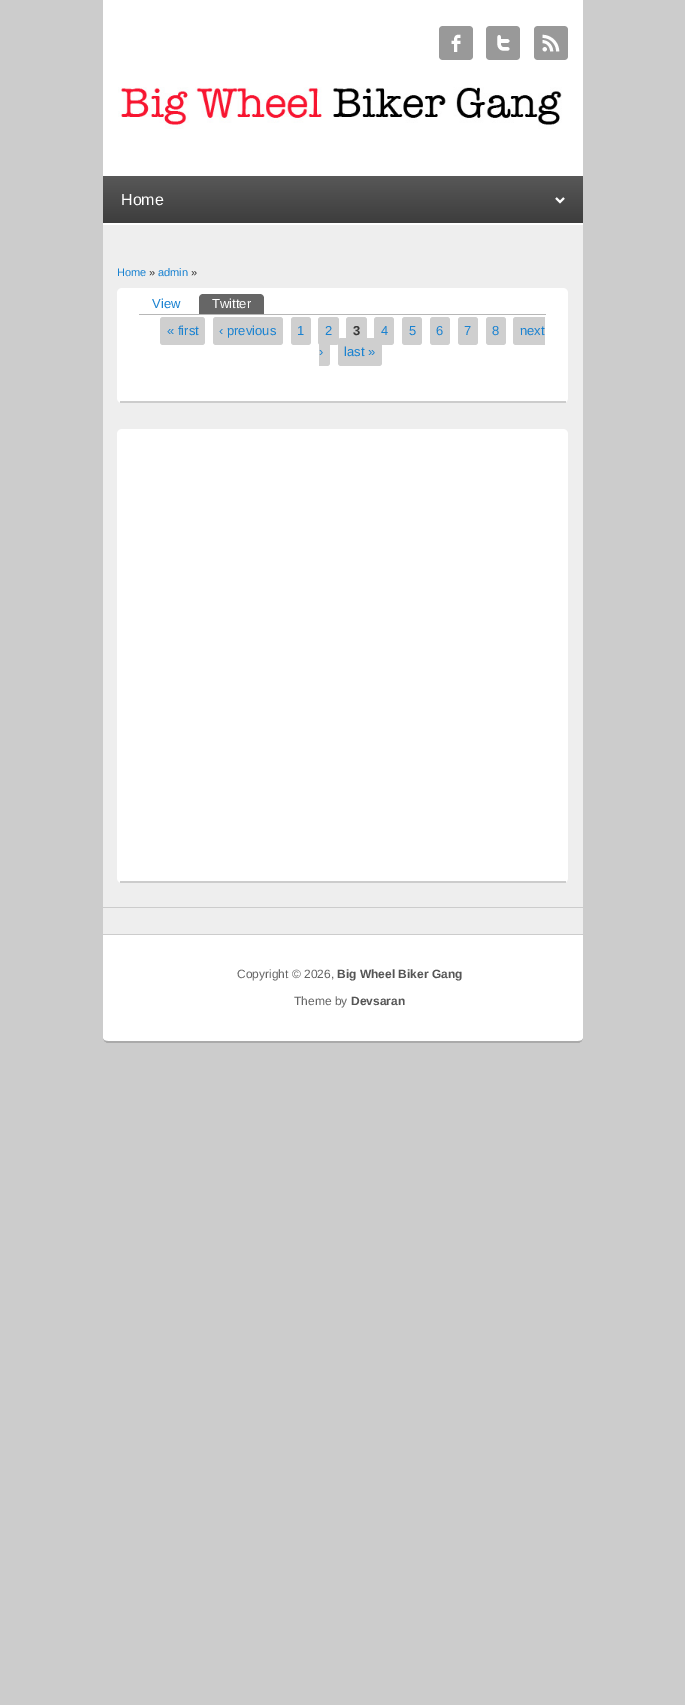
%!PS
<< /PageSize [685 1705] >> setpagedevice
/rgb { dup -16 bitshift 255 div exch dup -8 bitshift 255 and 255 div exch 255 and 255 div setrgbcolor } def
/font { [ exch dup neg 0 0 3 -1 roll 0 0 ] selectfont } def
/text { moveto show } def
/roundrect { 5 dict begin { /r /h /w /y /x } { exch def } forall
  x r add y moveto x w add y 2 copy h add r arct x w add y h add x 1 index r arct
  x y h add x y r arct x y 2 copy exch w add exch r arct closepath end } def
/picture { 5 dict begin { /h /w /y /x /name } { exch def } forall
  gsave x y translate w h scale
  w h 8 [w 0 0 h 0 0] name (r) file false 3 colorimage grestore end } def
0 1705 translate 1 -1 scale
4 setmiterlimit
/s1 { /LiberationSans-Regular 16 font 16#FFFFFF rgb } def
/s2 { /LiberationSans-Regular 11 font 16#1982D1 rgb } def
/s3 { /LiberationSans-Regular 11 font 16#373737 rgb } def
/s4 { /LiberationSans-Regular 13 font 16#1982D1 rgb } def
/s5 { /LiberationSans-Regular 13 font 16#FFFFFF rgb } def
/s6 { /LiberationSans-Bold 13 font 16#373737 rgb } def
/s7 { /LiberationSans-Regular 12 font 16#666666 rgb } def
/s8 { /LiberationSans-Bold 12 font 16#555555 rgb } def
16#CCCCCC rgb
0 0 685 1705 rectfill
16#EEEEEE rgb
103 0 480 1043 5 roundrect fill
16#FFFFFF rgb
103 0 480 225 rectfill
(pic1.raw) 439 26 34 34 picture
(pic2.raw) 486 26 34 34 picture
(pic3.raw) 534 26 34 34 picture
(pic4.raw) 118 87 444 42 picture
gsave 103 176 moveto 583 176 lineto 583 223 lineto 103 223 lineto closepath clip newpath
<< /ShadingType 2 /ColorSpace /DeviceRGB /Coords [343 176 343 223] /Extend [true true] /Function << /FunctionType 2 /Domain [0 1] /C0 [0.345 0.345 0.345] /C1 [0.239 0.239 0.239] /N 1 >> >> shfill grestore
2 setlinewidth
556 198 moveto 560 202 lineto 564 198 lineto stroke
s1
(Home) 121 205 text
s2
(Home) 117 276 text
s3
(») 149 276 text
s2
(admin) 158 276 text
s3
(») 191 276 text
16#FFFFFF rgb
117 288 451 115 5 roundrect fill
16#CCCCCC rgb
120 401 446 2 rectfill
16#B7B7B7 rgb
139 314 407 1 rectfill
s4
(View) 152 308 text
16#666666 rgb
203 294 moveto 260 294 lineto 262 294 264 296 264 298 curveto 264 314 lineto 199 314 lineto 199 298 lineto 199 296 201 294 203 294 curveto closepath fill
s5
(Twitter) 212 308 text
16#CFCFCF rgb
160 317 45 28 3 roundrect fill
s4
(« first) 167 335 text
16#CFCFCF rgb
213 317 70 28 3 roundrect fill
s4
(‹ previous) 219 335 text
16#CFCFCF rgb
291 317 20 28 3 roundrect fill
s4
(1) 297 335 text
16#CFCFCF rgb
318 317 21 28 3 roundrect fill
s4
(2) 325 335 text
16#CFCFCF rgb
346 317 21 28 3 roundrect fill
s6
(3) 353 335 text
16#CFCFCF rgb
374 317 20 28 3 roundrect fill
s4
(4) 381 335 text
16#CFCFCF rgb
402 317 20 28 3 roundrect fill
s4
(5) 409 335 text
16#CFCFCF rgb
430 317 20 28 3 roundrect fill
s4
(6) 436 335 text
16#CFCFCF rgb
458 317 20 28 3 roundrect fill
s4
(7) 464 335 text
16#CFCFCF rgb
486 317 20 28 3 roundrect fill
s4
(8) 492 335 text
16#CFCFCF rgb
516 317 moveto 545 317 lineto 545 345 lineto 516 345 lineto 514.5 345 513 343.5 513 342 curveto 513 320 lineto 513 318.5 514.5 317 516 317 curveto closepath fill
s4
(next) 520 335 text
16#CFCFCF rgb
319 338 moveto 327 338 lineto 328.5 338 330 339.5 330 341 curveto 330 363 lineto 330 364.5 328.5 366 327 366 curveto 319 366 lineto closepath fill
s4
(›) 319 356 text
16#CFCFCF rgb
338 338 44 28 3 roundrect fill
s4
(last ») 344 356 text
16#FFFFFF rgb
117 429 451 454 5 roundrect fill
16#CCCCCC rgb
120 881 446 2 rectfill
103 907 480 1 rectfill
16#FFFFFF rgb
103 934 moveto 583 934 lineto 583 1038 lineto 583 1041 581 1043 578 1043 curveto 108 1043 lineto 105 1043 103 1041 103 1038 curveto closepath fill
16#CCCCCC rgb
103 934 480 1 rectfill
16#AAAAAA rgb
108 1043 moveto 578 1043 lineto 581 1043 583 1041 583 1038 curveto 583 1040 581 1041 578 1041 curveto 108 1041 lineto 105 1041 103 1040 103 1038 curveto 103 1041 105 1043 108 1043 curveto closepath fill
s7
(Copyright © 2026,) 237 978 text
s8
(Big Wheel Biker Gang) 337 978 text
s7
(Theme by) 294 1005 text
s8
(Devsaran) 351 1005 text
showpage
